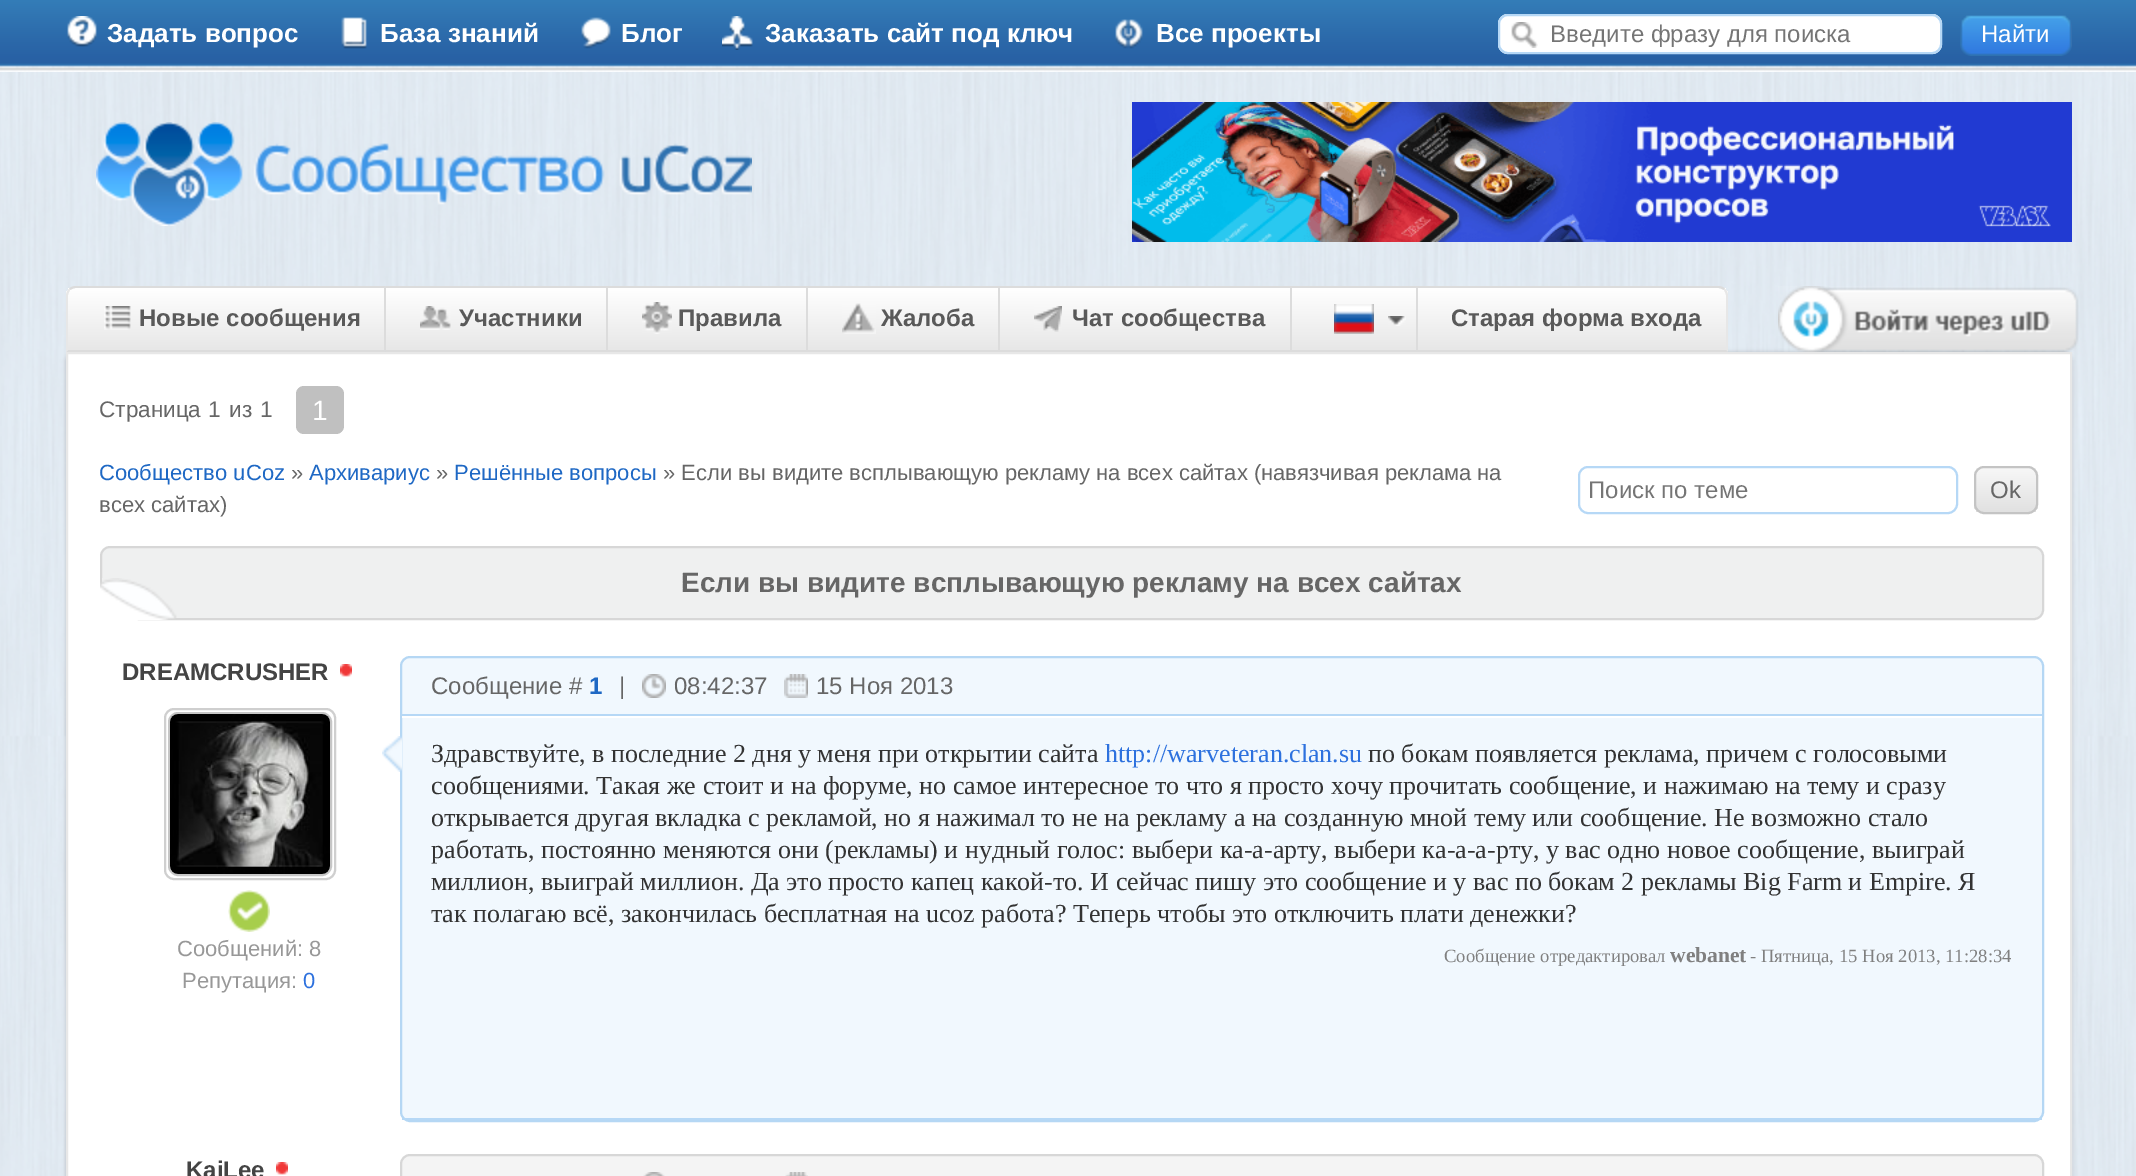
%!PS
<< /PageSize [2136 1176] /PageUsesTransparency true >> setpagedevice
/rgb { dup -16 bitshift 255 div exch dup -8 bitshift 255 and 255 div exch 255 and 255 div setrgbcolor } def
/font { [ exch dup neg 0 0 3 -1 roll 0 0 ] selectfont } def
/text { moveto show } def
/alpha { dup .setfillconstantalpha .setstrokeconstantalpha } def
/roundrect { 5 dict begin { /r /h /w /y /x } { exch def } forall
  x r add y moveto x w add y 2 copy h add r arct x w add y h add x 1 index r arct
  x y h add x y r arct x y 2 copy exch w add exch r arct closepath end } def
/shadow { 12 dict begin { /a /b /q /h /w /y /x } { exch def } forall gsave /was 0 def
  9 -2 -9 { dup b mul 4 div /e exch def 1 sub .425 mul 2.718 exch exp 1 add a .99 .min exch div /now exch def
    1 1 now sub 1 was sub div sub alpha /was now def
    w h .min e 2 mul add 0 gt { x e sub y e sub w e 2 mul add h e 2 mul add
      q e add b .6 mul add w h .min 2 div e add .min 0 .max roundrect fill } if } for grestore end } def
/picture { 5 dict begin { /h /w /y /x /name } { exch def } forall
  gsave x y translate w h scale
  w h 8 [w 0 0 h 0 0] name (r) file false 3 colorimage grestore end } def
0 .pushpdf14devicefilter
0 1176 translate 1 -1 scale
4 setmiterlimit
/s1 { /LiberationSans-Bold 26 font 16#FFFFFF rgb } def
/s2 { /LiberationSans-Regular 24 font 16#757575 rgb } def
/s3 { /LiberationSans-Regular 24 font 16#FFFFFF rgb } def
/s4 { /LiberationSans-Bold 24 font 16#595959 rgb } def
/s5 { /LiberationSans-Regular 22.5 font 16#666666 rgb } def
/s6 { /LiberationSans-Regular 28 font 16#FFFFFF rgb } def
/s7 { /LiberationSans-Regular 22 font 16#1E68C4 rgb } def
/s8 { /LiberationSans-Regular 22 font 16#666666 rgb } def
/s9 { /LiberationSans-Regular 24 font 16#666666 rgb } def
/s10 { /LiberationSans-Bold 28 font 16#666666 rgb } def
/s11 { /LiberationSans-Bold 24 font 16#444444 rgb } def
/s12 { /LiberationSans-Regular 22 font 16#989898 rgb } def
/s13 { /LiberationSans-Regular 22 font 16#2D71DE rgb } def
/s14 { /LiberationSans-Bold 24 font 16#1E68C4 rgb } def
/s15 { /LiberationSerif-Regular 26 font 16#333333 rgb } def
/s16 { /LiberationSerif-Regular 26 font 16#2D71DE rgb } def
/s17 { /LiberationSerif-Regular 18.7 font 16#808080 rgb } def
/s18 { /LiberationSerif-Bold 21.5 font 16#808080 rgb } def
16#FFFFFF rgb
0 0 2136 1176 rectfill
(pic1.raw) 0 72 2136 1104 picture
(pic2.raw) 0 0 2136 72 picture
(pic3.raw) 67 16 30 31 picture
s1
(Задать вопрос) 107 42 text
(pic4.raw) 341 17 26 32 picture
(База знаний) 380 42 text
(pic5.raw) 581 17 30 32 picture
(Блог) 621 42 text
(pic6.raw) 722 16 31 34 picture
(Заказать сайт под ключ) 765 42 text
(pic7.raw) 1115 19 28 30 picture
(Все проекты) 1156 42 text
1498 14 444 40 10 roundrect fill
(pic8.raw) 1511 22 27 26 picture
16#B6D8F6 rgb
2 setlinewidth
1499 15 442 38 9 roundrect stroke
s2
(Введите фразу для поиска) 1550 42 text
(pic9.raw) 1960 15 112 41 picture
s3
(Найти) 1981 42 text
(pic10.raw) 96 122 656 104 picture
(pic11.raw) 1132 102 940 140 picture
16#000000 rgb
66 352 2006 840 10 2 0.18 shadow
gsave
76 286 moveto 386 286 lineto 386 352 lineto 66 352 lineto 66 296 lineto 66 290.5 70.5 286 76 286 curveto closepath clip newpath
gsave 66 288 moveto 384 288 lineto 384 350 lineto 66 350 lineto closepath clip newpath
<< /ShadingType 2 /ColorSpace /DeviceRGB /Coords [226 288 226 350] /Extend [true true] /Function << /FunctionType 2 /Domain [0 1] /C0 [1 1 1] /C1 [0.906 0.906 0.906] /N 1 >> >> shfill grestore
grestore
16#DCDCDC rgb
76 286 moveto 73 286 70 287 69 289 curveto 70 290 lineto 72 289 74 288 76 288 curveto 384 288 lineto 386 286 lineto closepath fill
386 286 moveto 384 288 lineto 384 350 lineto 386 352 lineto closepath fill
386 352 moveto 384 350 lineto 68 350 lineto 66 352 lineto closepath fill
16#E7E7E7 rgb
66 352 moveto 68 350 lineto 68 296 lineto 68 294 69 292 70 290 curveto 69 289 lineto 67 290 66 293 66 296 curveto closepath fill
(pic12.raw) 104 306 27 24 picture
s4
(Новые сообщения) 139 326 text
gsave 386 288 moveto 606 288 lineto 606 350 lineto 386 350 lineto closepath clip newpath
<< /ShadingType 2 /ColorSpace /DeviceRGB /Coords [496 288 496 350] /Extend [true true] /Function << /FunctionType 2 /Domain [0 1] /C0 [1 1 1] /C1 [0.906 0.906 0.906] /N 1 >> >> shfill grestore
16#DCDCDC rgb
386 286 1032 2 rectfill
606 286 2 66 rectfill
386 350 222 2 rectfill
(pic13.raw) 420 306 31 24 picture
s4
(Участники) 459 326 text
gsave 608 288 moveto 806 288 lineto 806 350 lineto 608 350 lineto closepath clip newpath
<< /ShadingType 2 /ColorSpace /DeviceRGB /Coords [707 288 707 350] /Extend [true true] /Function << /FunctionType 2 /Domain [0 1] /C0 [1 1 1] /C1 [0.906 0.906 0.906] /N 1 >> >> shfill grestore
16#DCDCDC rgb
806 286 2 66 rectfill
608 350 200 2 rectfill
(pic14.raw) 642 302 30 32 picture
s4
(Правила) 678 326 text
gsave 808 288 moveto 998 288 lineto 998 350 lineto 808 350 lineto closepath clip newpath
<< /ShadingType 2 /ColorSpace /DeviceRGB /Coords [903 288 903 350] /Extend [true true] /Function << /FunctionType 2 /Domain [0 1] /C0 [1 1 1] /C1 [0.906 0.906 0.906] /N 1 >> >> shfill grestore
16#DCDCDC rgb
998 286 2 66 rectfill
808 350 192 2 rectfill
(pic15.raw) 842 303 34 31 picture
s4
(Жалоба) 881 326 text
gsave 1000 288 moveto 1290 288 lineto 1290 350 lineto 1000 350 lineto closepath clip newpath
<< /ShadingType 2 /ColorSpace /DeviceRGB /Coords [1145 288 1145 350] /Extend [true true] /Function << /FunctionType 2 /Domain [0 1] /C0 [1 1 1] /C1 [0.906 0.906 0.906] /N 1 >> >> shfill grestore
16#DCDCDC rgb
1290 286 2 66 rectfill
1000 350 292 2 rectfill
(pic16.raw) 1034 306 28 26 picture
s4
(Чат сообщества) 1072 326 text
gsave 1292 288 moveto 1416 288 lineto 1416 350 lineto 1292 350 lineto closepath clip newpath
<< /ShadingType 2 /ColorSpace /DeviceRGB /Coords [1354 288 1354 350] /Extend [true true] /Function << /FunctionType 2 /Domain [0 1] /C0 [1 1 1] /C1 [0.906 0.906 0.906] /N 1 >> >> shfill grestore
16#DCDCDC rgb
1416 286 2 66 rectfill
1292 350 126 2 rectfill
(pic17.raw) 1334 304 40 30 picture
(pic18.raw) 1388 316 18 10 picture
gsave
1418 286 moveto 1718 286 lineto 1723.5 286 1728 290.5 1728 296 curveto 1728 352 lineto 1418 352 lineto closepath clip newpath
gsave 1418 288 moveto 1728 288 lineto 1728 350 lineto 1418 350 lineto closepath clip newpath
<< /ShadingType 2 /ColorSpace /DeviceRGB /Coords [1572 288 1572 350] /Extend [true true] /Function << /FunctionType 2 /Domain [0 1] /C0 [1 1 1] /C1 [0.906 0.906 0.906] /N 1 >> >> shfill grestore
grestore
1418 286 moveto 1418 288 lineto 1718 288 lineto 1720 288 1722 289 1724 290 curveto 1725 289 lineto 1724 287 1721 286 1718 286 curveto closepath fill
16#E7E7E7 rgb
1726 350 moveto 1726 296 lineto 1726 294 1725 292 1724 290 curveto 1725 289 lineto 1727 290 1728 293 1728 296 curveto 1728 352 lineto closepath fill
16#DCDCDC rgb
1728 352 moveto 1726 350 lineto 1418 350 lineto 1418 352 lineto closepath fill
s4
(Старая форма входа) 1451 326 text
(pic19.raw) 1778 286 301 66 picture
16#FFFFFF rgb
67 353 moveto 2071 353 lineto 2071 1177 lineto 67 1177 lineto closepath gsave fill grestore
16#E7E7E7 rgb
stroke
s5
(Страница) 99 417 text
(1) 208 417 text
(из) 229 417 text
(1) 260 417 text
16#C0C0C0 rgb
296 386 48 48 8 roundrect fill
s6
(1) 312 420 text
s7
(Сообщество uCoz) 99 480 text
s8
(») 291 480 text
s7
(Архивариус) 309 480 text
s8
(») 436 480 text
s7
(Решённые вопросы) 454 480 text
s8
(» Если вы видите всплывающую рекламу на всех сайтах \(навязчивая реклама на) 663 480 text
(всех сайтах\)) 99 512 text
16#B6D8F6 rgb
1579 467 378 46 9 roundrect stroke
s2
(Поиск по теме) 1588 498 text
gsave
1974 466 64 48 10 roundrect clip newpath
gsave 1974 468 moveto 2038 468 lineto 2038 512 lineto 1974 512 lineto closepath clip newpath
<< /ShadingType 2 /ColorSpace /DeviceRGB /Coords [2006 468 2006 512] /Extend [true true] /Function << /FunctionType 2 /Domain [0 1] /C0 [0.969 0.969 0.969] /C1 [0.882 0.882 0.882] /N 1 >> >> shfill grestore
grestore
16#C4C4C4 rgb
1975 467 62 46 9 roundrect stroke
s9
(Ok) 1990 498 text
16#EFF0F0 rgb
110 547 moveto 2034 547 lineto 2039 547 2043 551 2043 556 curveto 2043 610 lineto 2043 615 2039 619 2034 619 curveto 140 619 lineto 118.5 619 101 601.5 101 580 curveto 101 556 lineto 101 551 105 547 110 547 curveto closepath gsave fill grestore
16#D7D7D7 rgb
stroke
(pic20.raw) 100 578 77 42 picture
s10
(Если вы видите всплывающую рекламу на всех сайтах) 681 592 text
s11
(DREAMCRUSHER) 122 680 text
(pic21.raw) 340 664 12 13 picture
16#CFCFCF rgb
165 709 170 170 9 roundrect stroke
16#C6C6C6 rgb
169 713 162 162 9 roundrect stroke
(pic22.raw) 170 714 160 160 picture
(pic23.raw) 228 890 42 42 picture
s12
(Сообщений: 8) 177 956 text
(Репутация:) 182 988 text
s13
(0) 303 988 text
16#F1F8FE rgb
401 657 1642 464 9 roundrect gsave fill grestore
16#B5D7F4 rgb
stroke
16#B6D8F6 rgb
402 714 1640 2 rectfill
s9
(Сообщение #) 431 694 text
s14
(1) 589 694 text
s9
(|) 619 694 text
(pic24.raw) 642 674 24 24 picture
(08:42:37) 674 694 text
(pic25.raw) 784 674 24 24 picture
(15 Ноя 2013) 816 694 text
(pic26.raw) 382 736 20 36 picture
16#FFFFFF rgb
402 716 1640 2 rectfill
16#B6D8F6 rgb
402 1118 1640 2 rectfill
s15
(Здравствуйте, в последние 2 дня у меня при открытии сайта) 431 762 text
s16
(http://warveteran.clan.su) 1105 762 text
s15
(по бокам появляется реклама, причем с голосовыми) 1368 762 text
(сообщениями. Такая же стоит и на форуме, но самое интересное то что я просто хочу прочитать сообщение, и нажимаю на тему и сразу) 431 794 text
(открывается другая вкладка с рекламой, но я нажимал то не на рекламу а на созданную мной тему или сообщение. Не возможно стало) 431 826 text
(работать, постоянно меняются они \(рекламы\) и нудный голос: выбери ка-а-арту, выбери ка-а-а-рту, у вас одно новое сообщение, выиграй) 431 858 text
(миллион, выиграй миллион. Да это просто капец какой-то. И сейчас пишу это сообщение и у вас по бокам 2 рекламы Big Farm и Empire. Я) 431 890 text
(так полагаю всё, закончилась бесплатная на ucoz работа? Теперь чтобы это отключить плати денежки?) 431 922 text
s17
(Сообщение отредактировал) 1444 962 text
s18
(webanet) 1670 962 text
s17
(- Пятница, 15 Ноя 2013, 11:28:34) 1750 962 text
s11
(KaiLee) 186 1178 text
(pic21.raw) 276 1162 12 13 picture
16#F4F4F4 rgb
401 1155 1642 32 9 roundrect gsave fill grestore
16#D7D7D7 rgb
stroke
(pic27.raw) 643 1172 22 4 picture
(pic28.raw) 785 1172 23 4 picture
.poppdf14devicefilter showpage
